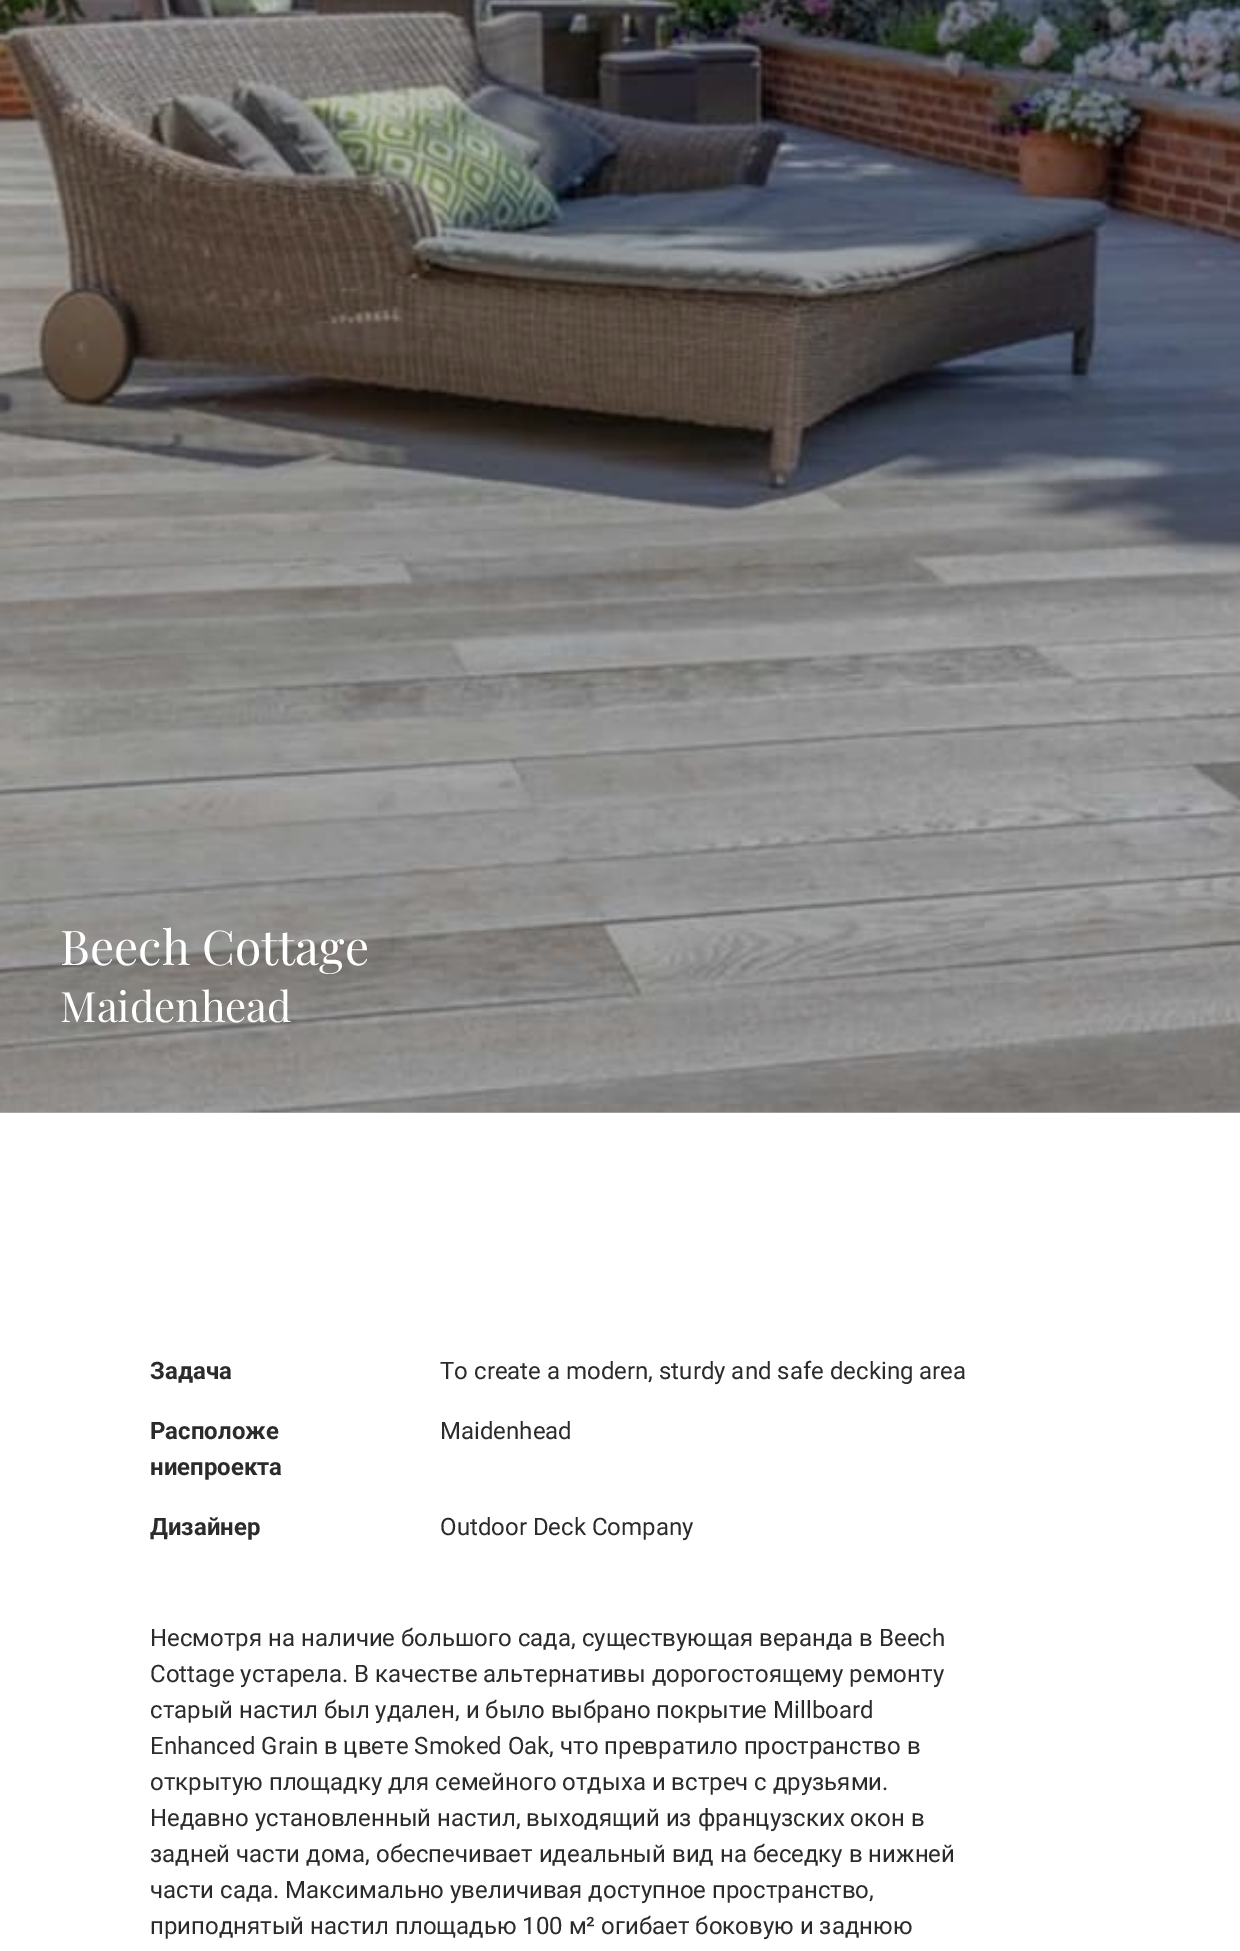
%!PS
<< /PageSize [1240 1951] >> setpagedevice
/rgb { dup -16 bitshift 255 div exch dup -8 bitshift 255 and 255 div exch 255 and 255 div setrgbcolor } def
/font { [ exch dup neg 0 0 3 -1 roll 0 0 ] selectfont } def
/text { moveto show } def
/picture { 5 dict begin { /h /w /y /x /name } { exch def } forall
  gsave x y translate w h scale
  w h 8 [w 0 0 h 0 0] name (r) file false 3 colorimage grestore end } def
0 1951 translate 1 -1 scale
4 setmiterlimit
/s1 { /PlayfairDisplay-Regular 48 font 16#FFFFFF rgb } def
/s2 { /PlayfairDisplay-Regular 42 font 16#FFFFFF rgb } def
/s3 { /Roboto-Bold 24 font 16#2B2B2B rgb } def
/s4 { /Roboto-Regular 24 font 16#2B2B2B rgb } def
16#FFFFFF rgb
0 0 1240 1951 rectfill
16#BFBFBF rgb
0 1112 1240 1 rectfill
(pic1.raw) 0 0 1240 1113 picture
s1
(Beech Cottage) 60 965 text
s2
(Maidenhead) 60 1022 text
s3
(Задача) 150 1379 text
s4
(To create a modern, sturdy and safe decking area) 440 1379 text
s3
(Расположе) 150 1439 text
(ниепроекта) 150 1475 text
s4
(Maidenhead) 440 1439 text
s3
(Дизайнер) 150 1535 text
s4
(Outdoor Deck Company) 440 1535 text
(Несмотря на наличие большого сада, существующая веранда в Beech) 150 1646 text
(Cottage устарела. В качестве альтернативы дорогостоящему ремонту) 150 1682 text
(старый настил был удален, и было выбрано покрытие Millboard) 150 1718 text
(Enhanced Grain в цвете Smoked Oak, что превратило пространство в) 150 1754 text
(открытую площадку для семейного отдыха и встреч с друзьями.) 150 1790 text
(Недавно установленный настил, выходящий из французских окон в) 150 1826 text
(задней части дома, обеспечивает идеальный вид на беседку в нижней) 150 1862 text
(части сада. Максимально увеличивая доступное пространство,) 150 1898 text
(приподнятый настил площадью 100 м² огибает боковую и заднюю) 150 1934 text
showpage
